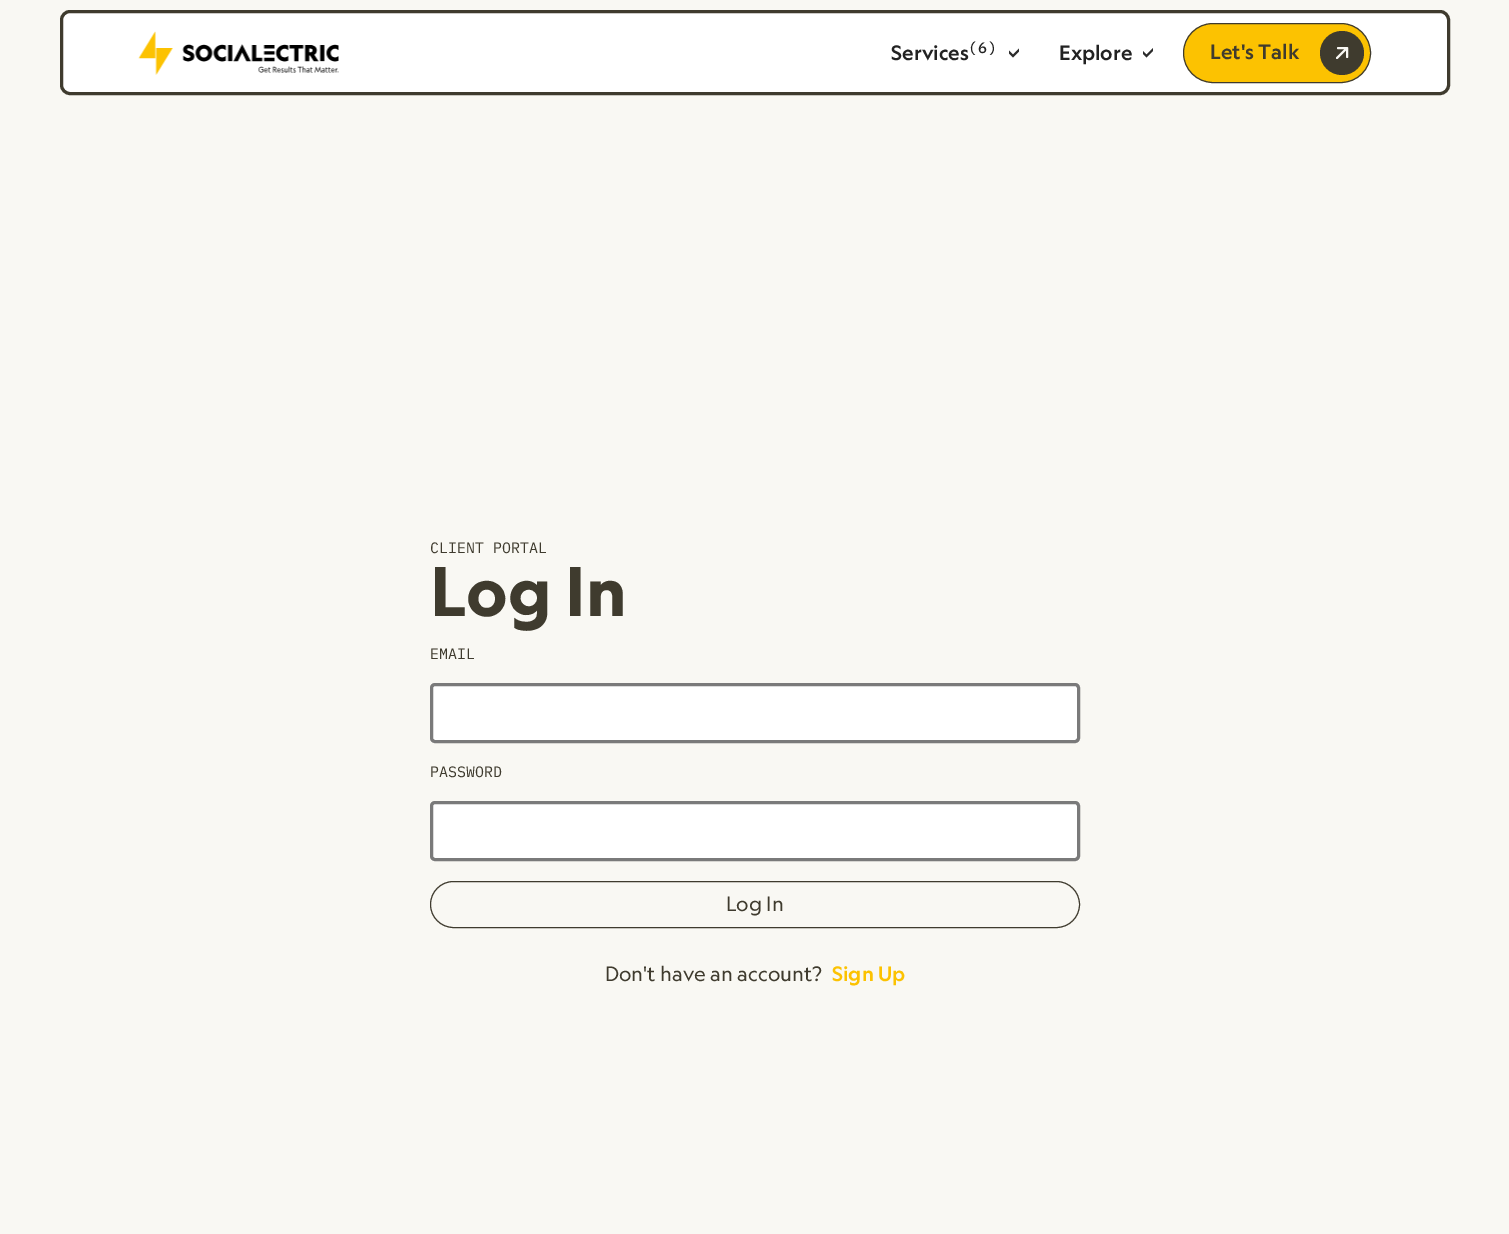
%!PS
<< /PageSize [1509 1234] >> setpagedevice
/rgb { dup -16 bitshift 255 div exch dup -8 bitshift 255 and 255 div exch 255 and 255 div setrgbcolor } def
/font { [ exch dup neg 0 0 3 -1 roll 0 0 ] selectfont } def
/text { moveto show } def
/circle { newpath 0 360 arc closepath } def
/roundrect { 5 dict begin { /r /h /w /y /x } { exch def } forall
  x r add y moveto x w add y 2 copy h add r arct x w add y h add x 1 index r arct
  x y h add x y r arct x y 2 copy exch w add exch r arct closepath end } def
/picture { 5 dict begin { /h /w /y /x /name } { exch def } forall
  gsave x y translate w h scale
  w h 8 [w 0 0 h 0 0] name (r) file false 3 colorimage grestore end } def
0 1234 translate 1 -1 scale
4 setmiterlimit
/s1 { /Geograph-Medium 20 font 16#222222 rgb } def
/s2 { /Geograph-Medium 20 font 16#3F3B2E rgb } def
/s3 { /IBMPlexMono-Regular 15 font 16#3F3B2E rgb } def
/s4 { /Geograph-Bold 67 font 16#3F3B2E rgb } def
/s5 { /Geograph-Regular 20 font 16#3F3B2E rgb } def
/s6 { /Geograph-Medium 20 font 16#FCC201 rgb } def
16#F9F8F3 rgb
0 0 1509 1234 rectfill
16#FFFFFF rgb
61.5 11.5 1387 82 8.5 roundrect gsave fill grestore
16#3F3B2E rgb
3 setlinewidth
stroke
(pic1.raw) 138 31 201 44 picture
s1
(Services) 891 60 text
/IBMPlexMono-Medium 15 font
968 53 moveto 1 0 (\(6\)) ashow
gsave
1009 48 10 10 rectclip
16#2B2B2B rgb
1.9 setlinewidth
1005 48 moveto 1013 56 lineto 1021 48 lineto stroke
grestore
s1
(Explore) 1059 60 text
gsave
1143 48 10 10 rectclip
16#2B2B2B rgb
1.9 setlinewidth
1138.5 48 moveto 1146.5 56 lineto 1154.5 48 lineto stroke
grestore
16#FCC201 rgb
1183.5 23.5 187 59 29.5 roundrect gsave fill grestore
16#3F3B2E rgb
1 setlinewidth
stroke
(Let's Talk) 1210 59 text
1342 53 22 circle fill
16#F9F8F3 rgb
2 setlinewidth
1 setlinecap
1 setlinejoin
1347 48 moveto 1337 58 lineto 1338 48 moveto 1347 48 lineto 1347 57 lineto stroke
s3
(CLIENT PORTAL) 430 553 text
s4
(Log In) 430 616 text
s3
(EMAIL) 430 659 text
16#FFFFFF rgb
431.5 684.5 647 57 3.5 roundrect gsave fill grestore
16#7A7A7A rgb
3 setlinewidth
0 setlinecap
0 setlinejoin
stroke
s3
(PASSWORD) 430 777 text
16#FFFFFF rgb
431.5 802.5 647 57 3.5 roundrect gsave fill grestore
16#7A7A7A rgb
stroke
16#3F3B2E rgb
1 setlinewidth
430.5 881.5 649 46 23 roundrect stroke
s5
(Log In) 726 911 text
(Don't have an account?) 605 981 text
s6
(Sign Up) 832 981 text
showpage
